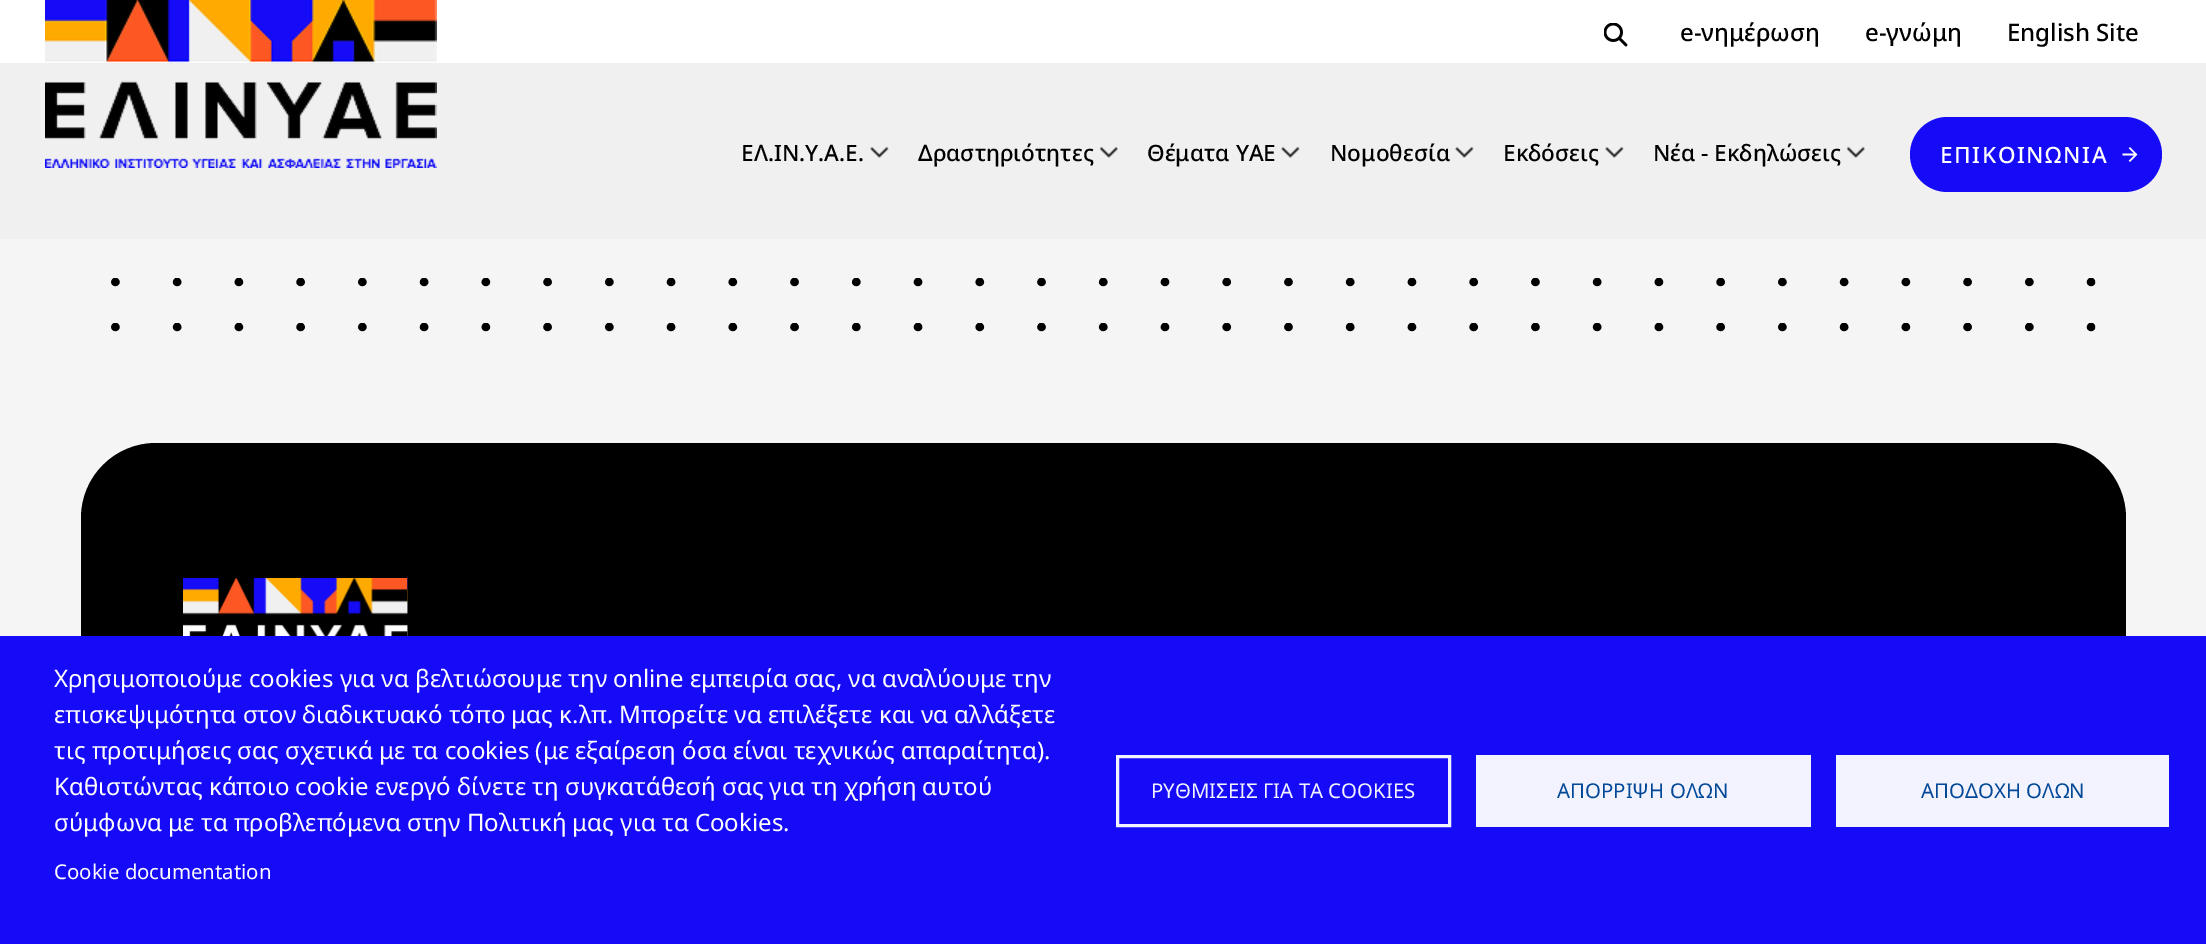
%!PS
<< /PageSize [2206 944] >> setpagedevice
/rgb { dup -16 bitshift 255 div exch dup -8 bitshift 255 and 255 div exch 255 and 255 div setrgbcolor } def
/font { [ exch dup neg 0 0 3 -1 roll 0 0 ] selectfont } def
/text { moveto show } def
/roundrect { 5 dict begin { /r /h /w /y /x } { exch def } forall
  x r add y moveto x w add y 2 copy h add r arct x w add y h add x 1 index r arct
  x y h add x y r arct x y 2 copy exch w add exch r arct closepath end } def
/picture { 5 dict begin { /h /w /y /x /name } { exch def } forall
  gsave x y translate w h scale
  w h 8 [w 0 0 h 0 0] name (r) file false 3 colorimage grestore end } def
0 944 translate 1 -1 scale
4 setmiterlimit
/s1 { /NotoSans-Medium 24 font 16#000000 rgb } def
/s2 { /NotoSans-Medium 22.5 font 16#000000 rgb } def
/s3 { /NotoSans-Regular 24 font 16#FFFFFF rgb } def
/s4 { /NotoSans-Regular 20.4 font 16#FFFFFF rgb } def
/s5 { /NotoSans-Regular 20.4 font 16#F3F3FF rgb } def
/s6 { /NotoSans-Regular 20.4 font 16#014998 rgb } def
16#F5F5F5 rgb
0 0 2206 944 rectfill
16#F0F0F0 rgb
0 63 2206 176 rectfill
16#FFFFFF rgb
0 0 2206 63 rectfill
(pic1.raw) 1604 23 24 24 picture
s1
(e-νημέρωση) 1680 41 text
(e-γνώμη) 1865 41 text
(English Site) 2007 41 text
(pic2.raw) 45 0 392 168 picture
s2
(ΕΛ.ΙΝ.Υ.Α.Ε.) 741 161 text
(pic3.raw) 870 146 19 12 picture
(Δραστηριότητες) 918 161 text
(pic4.raw) 1099 146 19 12 picture
(Θέματα ΥΑΕ) 1147 161 text
(pic3.raw) 1281 146 19 12 picture
(Νομοθεσία) 1330 161 text
(pic3.raw) 1455 146 19 12 picture
(Εκδόσεις) 1503 161 text
(pic3.raw) 1605 146 19 12 picture
(Νέα - Εκδηλώσεις) 1653 161 text
(pic4.raw) 1846 146 19 12 picture
16#150BF7 rgb
1910 117 252 75 37.5 roundrect fill
16#FFFFFF rgb
1940 163 moveto 1.6 0 (ΕΠΙΚΟΙΝΩΝΙΑ) ashow
(pic5.raw) 2122 147 16 15 picture
(pic6.raw) 111 278 1985 9 picture
(pic6.raw) 111 323 1985 9 picture
16#000000 rgb
81 443 2045 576 75 roundrect fill
(pic7.raw) 183 578 225 58 picture
16#150BF7 rgb
0 636 2206 308 rectfill
s3
(Χρησιμοποιούμε cookies για να βελτιώσουμε την online εμπειρία σας, να αναλύουμε την) 54 687 text
(επισκεψιμότητα στον διαδικτυακό τόπο μας κ.λπ. Μπορείτε να επιλέξετε και να αλλάξετε) 54 723 text
(τις προτιμήσεις σας σχετικά με τα cookies \(με εξαίρεση όσα είναι τεχνικώς απαραίτητα\).) 54 759 text
(Καθιστώντας κάποιο cookie ενεργό δίνετε τη συγκατάθεσή σας για τη χρήση αυτού) 54 795 text
(σύμφωνα με τα προβλεπόμενα στην Πολιτική μας για τα Cookies.) 54 831 text
s4
(Cookie documentation) 54 879 text
16#F3F3FF rgb
3 setlinewidth
1117.5 756.5 332 69 rectstroke
(ΡΥΘΜΙΣΕΙΣ ΓΙΑ ΤΑ COOKIES) 1151 798 text
1476 755 335 72 rectfill
s6
(ΑΠΟΡΡΙΨΗ ΟΛΩΝ) 1557 798 text
16#F3F3FF rgb
1836 755 333 72 rectfill
s6
(ΑΠΟΔΟΧΗ ΟΛΩΝ) 1921 798 text
showpage
